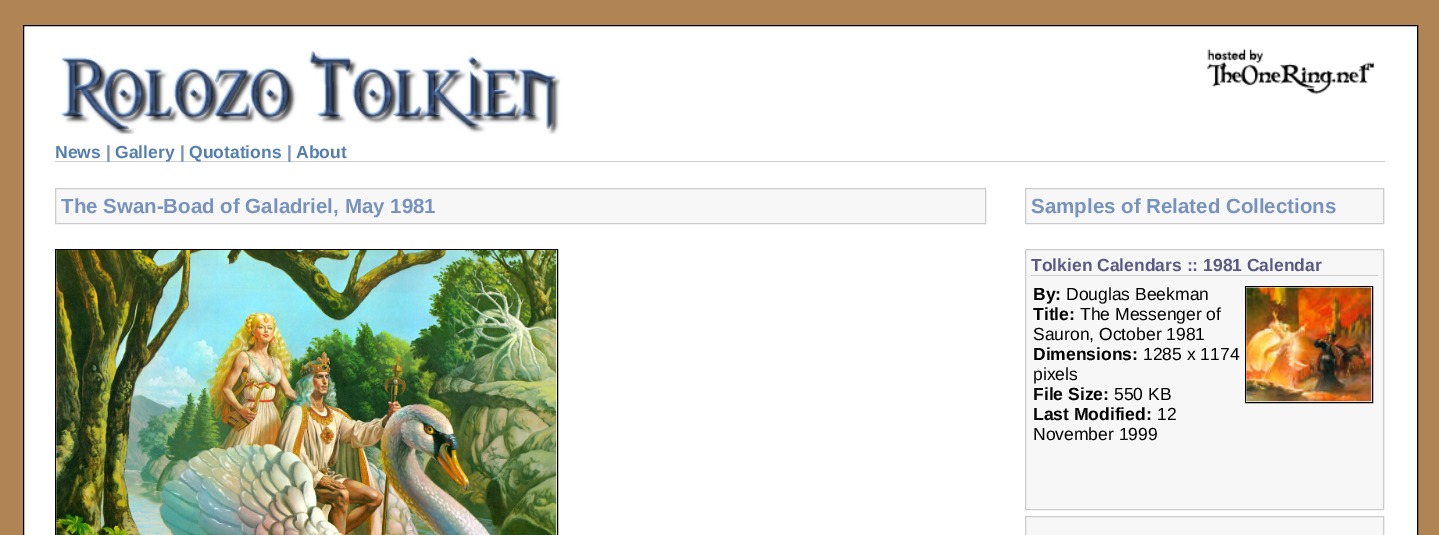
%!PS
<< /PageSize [1439 535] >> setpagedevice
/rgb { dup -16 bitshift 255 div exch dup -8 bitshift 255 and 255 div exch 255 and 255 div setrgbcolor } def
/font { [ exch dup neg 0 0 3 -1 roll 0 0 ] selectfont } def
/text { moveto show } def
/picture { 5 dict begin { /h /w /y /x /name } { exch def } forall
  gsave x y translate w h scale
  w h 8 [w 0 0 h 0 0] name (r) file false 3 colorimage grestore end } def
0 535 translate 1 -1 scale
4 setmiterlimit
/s1 { /LiberationSans-Bold 17.5 font 16#537EB0 rgb } def
/s2 { /LiberationSans-Bold 17.5 font 16#7792BC rgb } def
/s3 { /LiberationSans-Bold 20.5 font 16#7792BC rgb } def
/s4 { /LiberationSans-Bold 17.5 font 16#595983 rgb } def
/s5 { /LiberationSans-Bold 17.5 font 16#000000 rgb } def
/s6 { /LiberationSans-Regular 17.5 font 16#000000 rgb } def
16#B08553 rgb
0 0 1439 535 rectfill
16#FFFFFF rgb
23.5 25.5 moveto 1417.5 25.5 lineto 1417.5 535.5 lineto 23.5 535.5 lineto closepath gsave fill grestore
16#000000 rgb
stroke
(pic1.raw) 61 50 500 84 picture
(pic2.raw) 1206 48 168 46 picture
16#CCCCCC rgb
55 161 1330 1 rectfill
s1
(News) 55 158 text
s2
(|) 106 158 text
s1
(Gallery) 115 158 text
s2
(|) 180 158 text
s1
(Quotations) 189 158 text
s2
(|) 287 158 text
s1
(About) 296 158 text
16#F7F7F7 rgb
55.5 188.5 moveto 985.5 188.5 lineto 985.5 223.5 lineto 55.5 223.5 lineto closepath gsave fill grestore
16#CCCCCC rgb
stroke
s3
(The Swan-Boad of Galadriel, May 1981) 61 213 text
16#000000 rgb
55.5 249.5 502 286 rectstroke
(pic3.raw) 56 250 501 285 picture
16#F7F7F7 rgb
1025.5 188.5 moveto 1383.5 188.5 lineto 1383.5 223.5 lineto 1025.5 223.5 lineto closepath gsave fill grestore
16#CCCCCC rgb
stroke
s3
(Samples of Related Collections) 1031 213 text
16#F7F7F7 rgb
1025.5 249.5 moveto 1383.5 249.5 lineto 1383.5 509.5 lineto 1025.5 509.5 lineto closepath gsave fill grestore
16#CCCCCC rgb
stroke
1031 275 347 1 rectfill
s4
(Tolkien Calendars :: 1981 Calendar) 1031 271 text
s5
(By:) 1033 300 text
s6
(Douglas Beekman) 1066 300 text
s5
(Title:) 1033 320 text
s6
(The Messenger of) 1080 320 text
(Sauron, October 1981) 1033 340 text
s5
(Dimensions:) 1033 360 text
s6
(1285 x 1174) 1143 360 text
(pixels) 1033 380 text
s5
(File Size:) 1033 400 text
s6
(550 KB) 1114 400 text
s5
(Last Modified:) 1033 420 text
s6
(12) 1157 420 text
(November 1999) 1033 440 text
1245.5 286.5 127 116 rectstroke
(pic4.raw) 1246 287 126 115 picture
16#F7F7F7 rgb
1025.5 516.5 moveto 1383.5 516.5 lineto 1383.5 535.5 lineto 1025.5 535.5 lineto closepath gsave fill grestore
16#CCCCCC rgb
stroke
showpage
